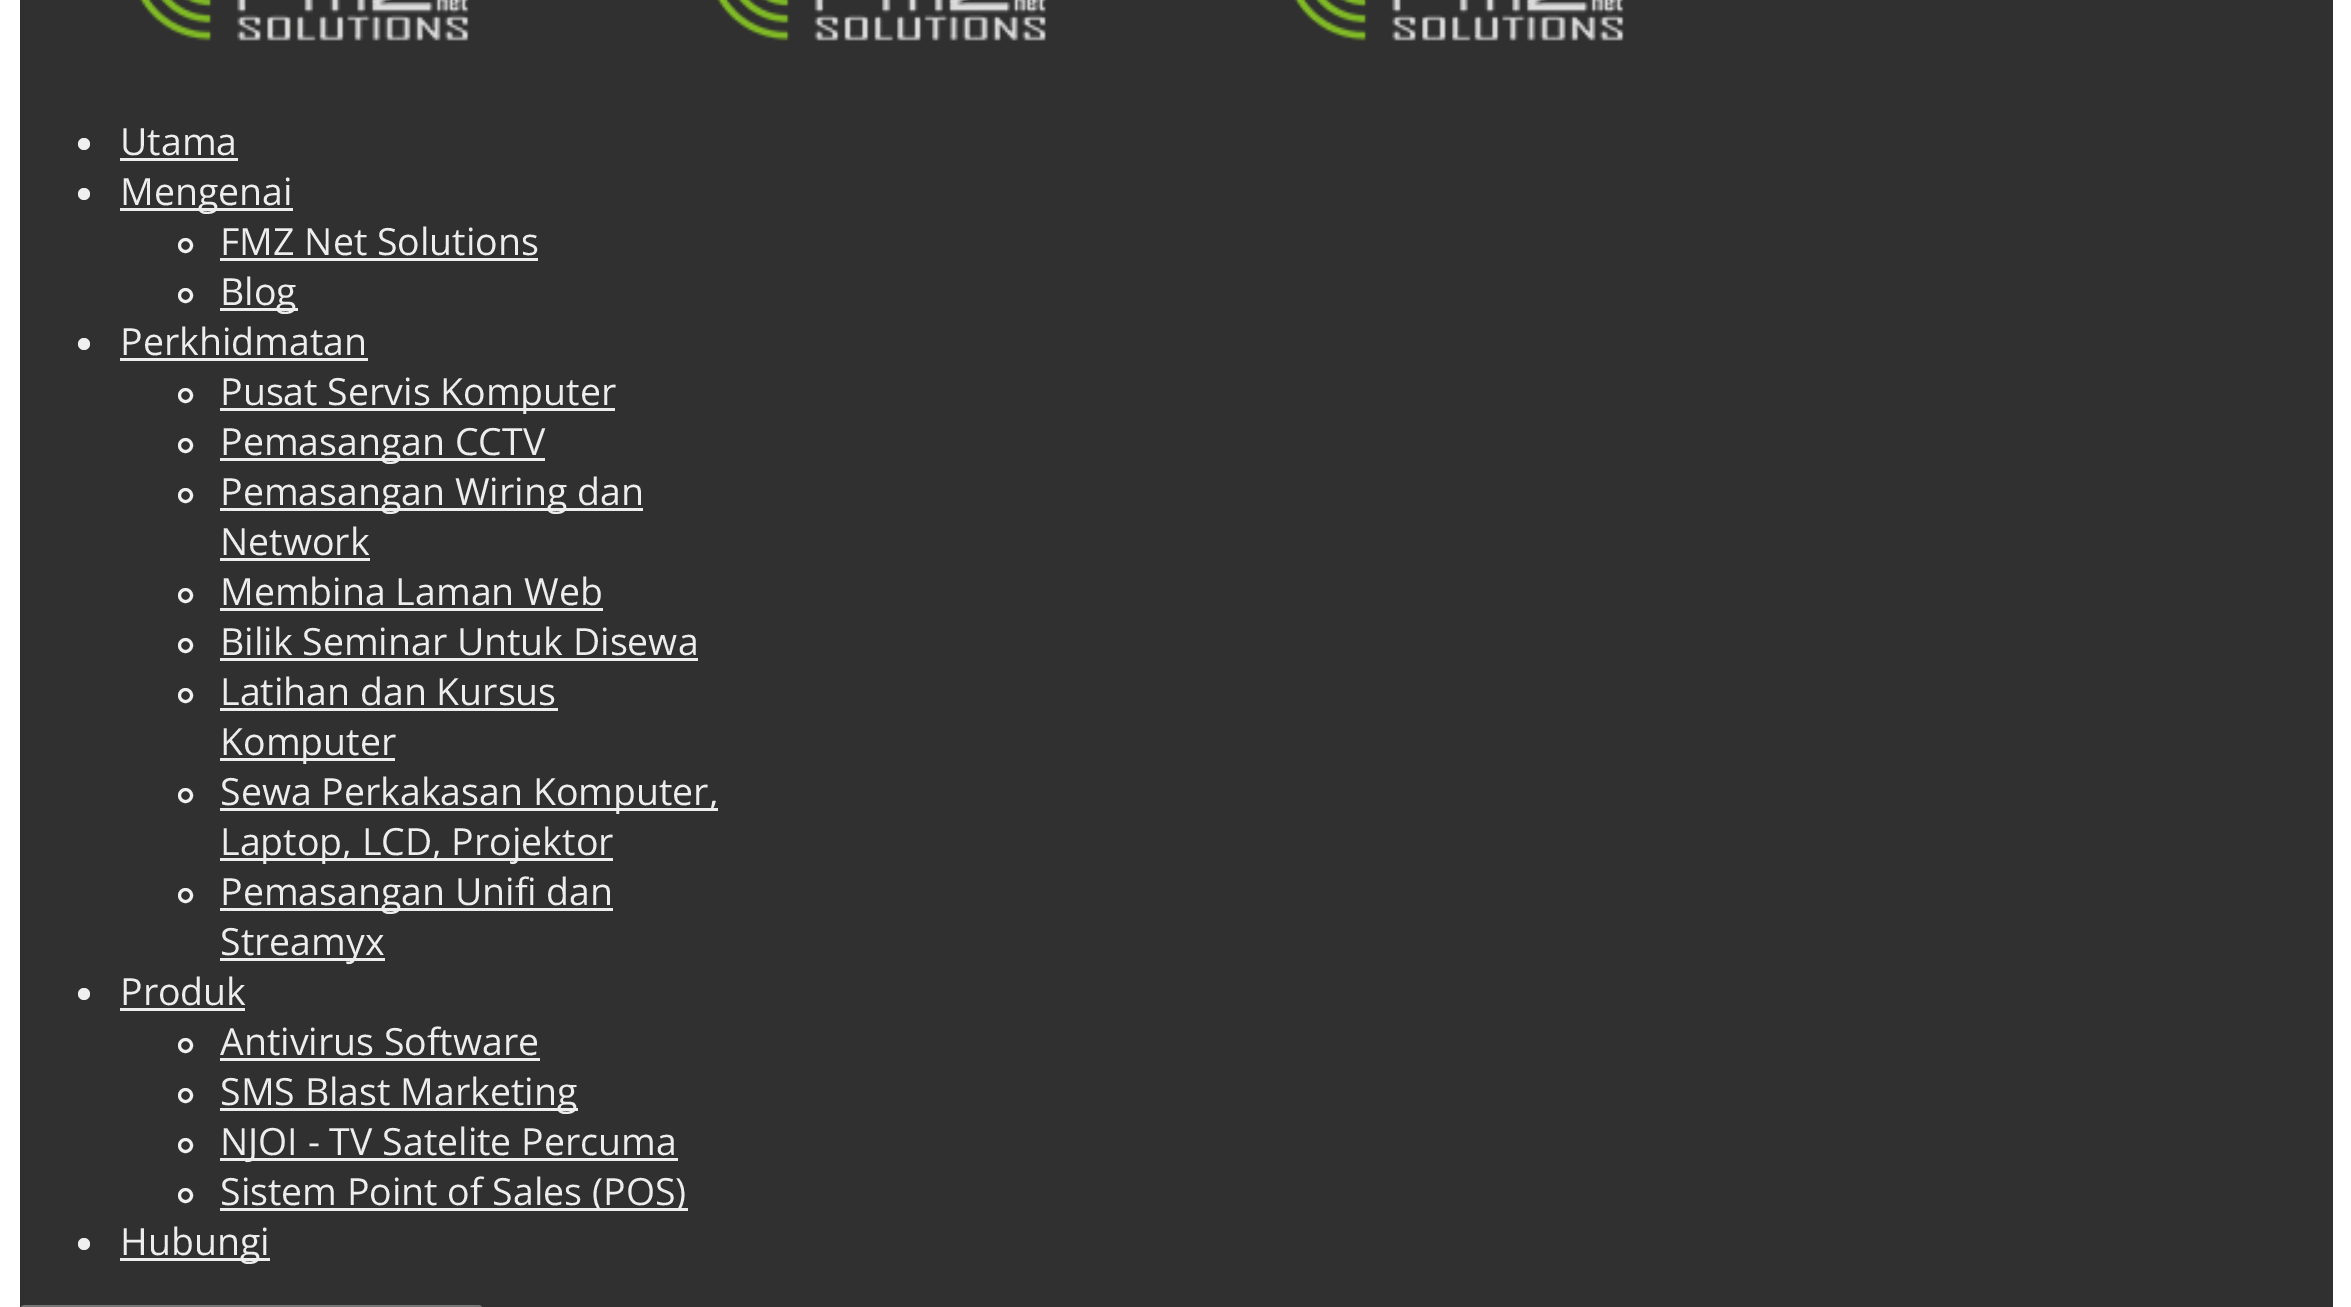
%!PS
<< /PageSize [2351 1307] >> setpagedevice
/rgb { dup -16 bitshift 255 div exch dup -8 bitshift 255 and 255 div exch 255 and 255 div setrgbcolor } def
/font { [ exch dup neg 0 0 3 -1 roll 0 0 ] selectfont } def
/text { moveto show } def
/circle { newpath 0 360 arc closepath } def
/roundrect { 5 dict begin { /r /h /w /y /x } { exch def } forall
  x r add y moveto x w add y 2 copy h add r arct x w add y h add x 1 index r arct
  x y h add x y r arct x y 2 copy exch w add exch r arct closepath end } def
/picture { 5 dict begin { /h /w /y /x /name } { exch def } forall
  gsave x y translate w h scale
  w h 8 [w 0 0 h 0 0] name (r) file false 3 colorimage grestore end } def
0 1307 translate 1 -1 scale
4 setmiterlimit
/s1 { /OpenSans-Regular 37.5 font 16#EDEDED rgb } def
16#FFFFFF rgb
0 0 2351 1307 rectfill
16#303030 rgb
20 0 2313 1307 rectfill
(pic1.raw) 139 0 330 41 picture
(pic2.raw) 717 0 329 41 picture
(pic3.raw) 1294 0 330 41 picture
16#F0F0F0 rgb
84 144 6 circle fill
s1
(Utama) 120 155 text
120 158 118 3 rectfill
16#F0F0F0 rgb
84 194 6 circle fill
16#EDEDED rgb
120 208 173 3 rectfill
(Mengenai) 120 205 text
16#F0F0F0 rgb
3 setlinewidth
185.5 245.5 6 circle stroke
s1
(FMZ Net Solutions) 220 255 text
220 258 318 3 rectfill
16#F0F0F0 rgb
185.5 295.5 6 circle stroke
16#EDEDED rgb
220 308 78 3 rectfill
(Blog) 220 305 text
16#F0F0F0 rgb
84 344 6 circle fill
s1
(Perkhidmatan) 120 355 text
120 358 248 3 rectfill
16#F0F0F0 rgb
185.5 395.5 6 circle stroke
16#EDEDED rgb
220 408 395 3 rectfill
(Pusat Servis Komputer) 220 405 text
16#F0F0F0 rgb
185.5 445.5 6 circle stroke
16#EDEDED rgb
220 458 325 3 rectfill
(Pemasangan CCTV) 220 455 text
16#F0F0F0 rgb
185.5 495.5 6 circle stroke
16#EDEDED rgb
220 508 423 3 rectfill
(Pemasangan Wiring dan) 220 505 text
(Network) 220 555 text
220 558 150 3 rectfill
16#F0F0F0 rgb
185.5 595.5 6 circle stroke
s1
(Membina Laman Web) 220 605 text
220 608 383 3 rectfill
16#F0F0F0 rgb
185.5 645.5 6 circle stroke
s1
(Bilik Seminar Untuk Disewa) 220 655 text
220 658 478 3 rectfill
16#F0F0F0 rgb
185.5 695.5 6 circle stroke
s1
(Latihan dan Kursus) 220 705 text
220 708 338 3 rectfill
220 758 175 3 rectfill
(Komputer) 220 755 text
16#F0F0F0 rgb
185.5 795.5 6 circle stroke
16#EDEDED rgb
220 808 498 3 rectfill
(Sewa Perkakasan Komputer,) 220 805 text
220 858 393 3 rectfill
(Laptop, LCD, Projektor) 220 855 text
16#F0F0F0 rgb
185.5 895.5 6 circle stroke
16#EDEDED rgb
220 908 393 3 rectfill
(Pemasangan Unifi dan) 220 905 text
220 958 165 3 rectfill
(Streamyx) 220 955 text
16#F0F0F0 rgb
84 994 6 circle fill
s1
(Produk) 120 1005 text
120 1008 125 3 rectfill
16#F0F0F0 rgb
185.5 1045.5 6 circle stroke
s1
(Antivirus Software) 220 1055 text
220 1058 320 3 rectfill
16#F0F0F0 rgb
185.5 1095.5 6 circle stroke
16#EDEDED rgb
220 1108 358 3 rectfill
(SMS Blast Marketing) 220 1105 text
16#F0F0F0 rgb
185.5 1145.5 6 circle stroke
16#EDEDED rgb
220 1158 458 3 rectfill
(NJOI - TV Satelite Percuma) 220 1155 text
16#F0F0F0 rgb
185.5 1195.5 6 circle stroke
16#EDEDED rgb
220 1208 468 3 rectfill
(Sistem Point of Sales \(POS\)) 220 1205 text
16#F0F0F0 rgb
84 1244 6 circle fill
16#EDEDED rgb
120 1258 150 3 rectfill
(Hubungi) 120 1255 text
16#767676 rgb
21.5 1306.5 460 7 3.5 roundrect stroke
showpage
